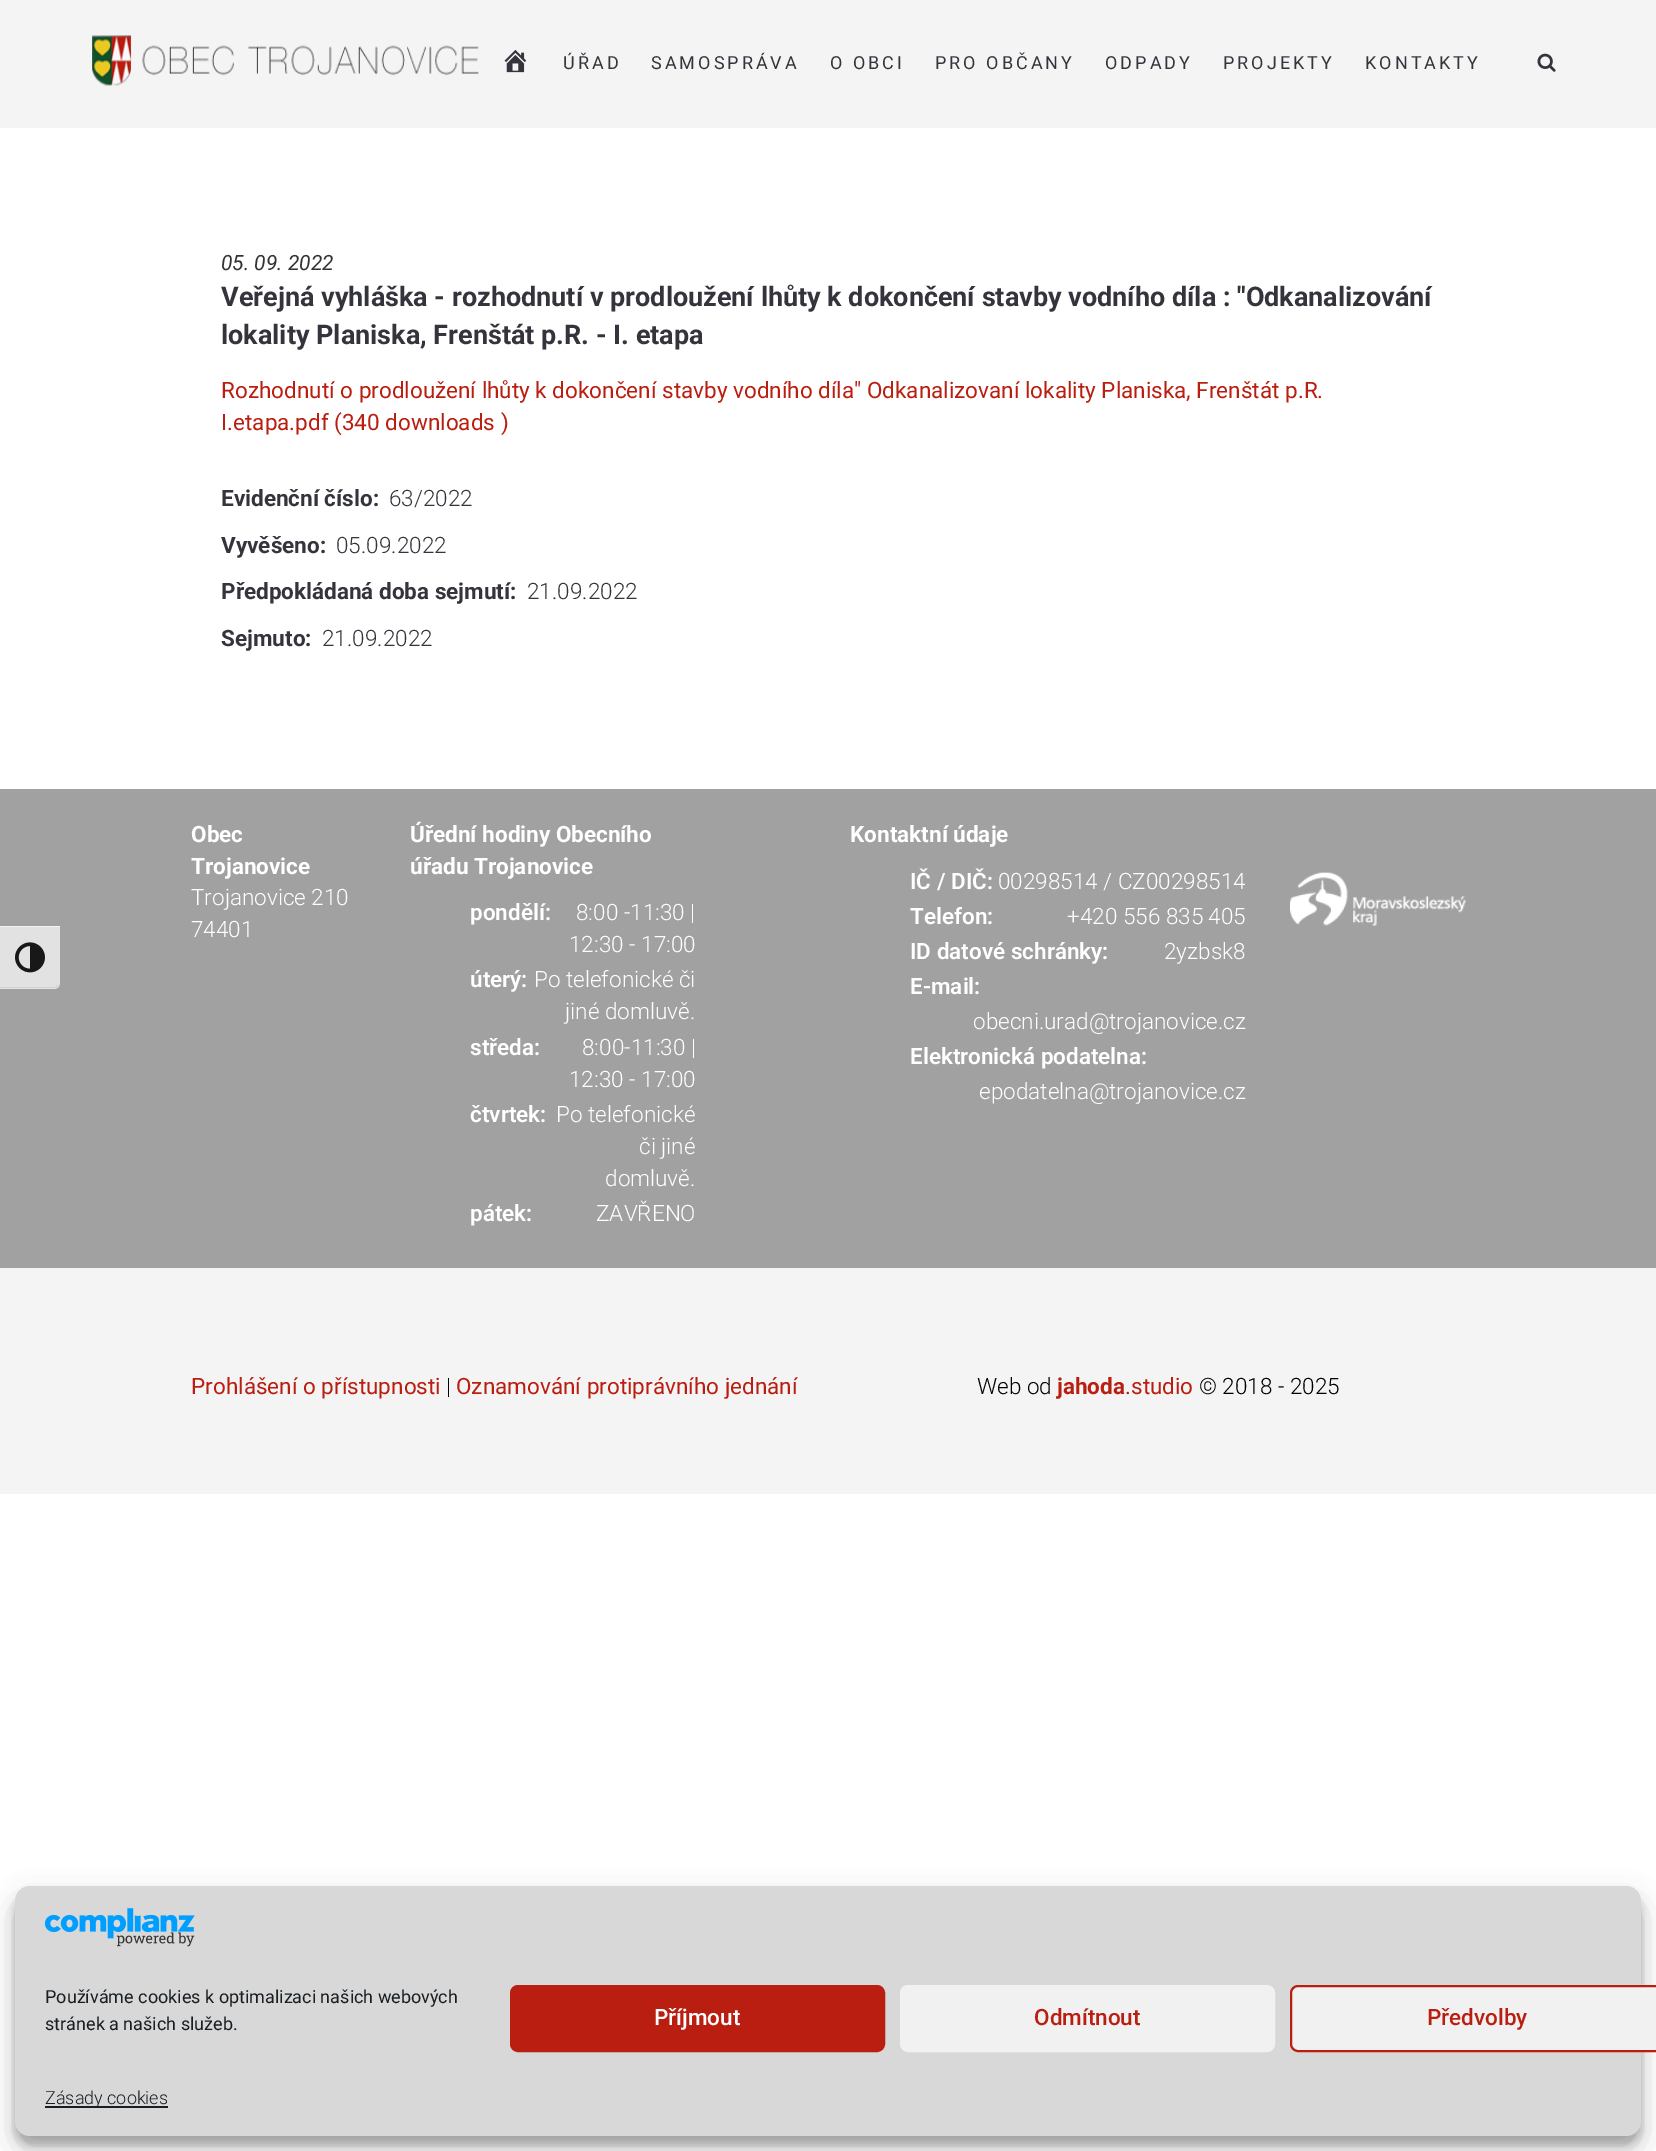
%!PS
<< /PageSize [1656 2151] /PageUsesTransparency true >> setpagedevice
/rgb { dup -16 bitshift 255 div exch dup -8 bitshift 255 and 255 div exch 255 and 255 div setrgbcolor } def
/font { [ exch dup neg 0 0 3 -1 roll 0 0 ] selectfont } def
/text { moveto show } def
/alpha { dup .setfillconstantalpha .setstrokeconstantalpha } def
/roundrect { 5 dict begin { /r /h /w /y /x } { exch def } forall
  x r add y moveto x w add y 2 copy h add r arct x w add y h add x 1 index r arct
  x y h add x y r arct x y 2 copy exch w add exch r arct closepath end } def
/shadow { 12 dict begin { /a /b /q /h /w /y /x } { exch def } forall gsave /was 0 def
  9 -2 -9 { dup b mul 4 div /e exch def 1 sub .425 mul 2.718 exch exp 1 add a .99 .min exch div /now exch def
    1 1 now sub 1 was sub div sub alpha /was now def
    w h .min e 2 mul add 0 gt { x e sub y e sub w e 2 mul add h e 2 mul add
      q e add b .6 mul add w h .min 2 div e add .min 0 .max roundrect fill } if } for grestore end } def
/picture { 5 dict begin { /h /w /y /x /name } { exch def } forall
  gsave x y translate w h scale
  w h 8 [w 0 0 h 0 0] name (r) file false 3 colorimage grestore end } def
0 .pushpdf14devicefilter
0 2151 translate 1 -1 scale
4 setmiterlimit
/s1 { /Roboto-Italic 21 font 16#333333 rgb } def
/s2 { /Roboto-Bold 27 font 16#34343C rgb } def
/s3 { /Roboto-Regular 22.5 font 16#BA1E11 rgb } def
/s4 { /Roboto-Bold 22.5 font 16#34343C rgb } def
/s5 { /Roboto-Light 22.5 font 16#34343C rgb } def
/s6 { /Roboto-Bold 22.5 font 16#FFFFFF rgb } def
/s7 { /Roboto-Light 22.5 font 16#FFFFFF rgb } def
/s8 { /Roboto-SemiBold 22.5 font 16#FFFFFF rgb } def
/s9 { /Roboto-Light 22.5 font 16#000000 rgb } def
/s10 { /Roboto-Bold 22.5 font 16#BA1E11 rgb } def
/s11 { /Roboto-Regular 18 font 16#191E23 rgb } def
/s12 { /Roboto-Medium 22.5 font 16#FFFFFF rgb } def
/s13 { /Roboto-Medium 22.5 font 16#BA1E11 rgb } def
/s14 { /Roboto-Light 18 font 16#191E23 rgb } def
16#FFFFFF rgb
0 0 1656 2151 rectfill
16#A1A1A1 rgb
0 789 1656 479 rectfill
16#E2E2E2 rgb
0 926 moveto 60 926 lineto 60 983 lineto 60 986.5 57.5 989 54 989 curveto 0 989 lineto closepath fill
16#F5F5F5 rgb
0 926 60 1 rectfill
16#D2D2D2 rgb
0 987 moveto 0 988 lineto 54 988 lineto 57 988 60 986 60 982 curveto 60 985 57 987 54 987 curveto closepath fill
(pic1.raw) 15 942 30 31 picture
16#F4F4F4 rgb
0 0 1656 128 rectfill
(pic2.raw) 92 35 387 51 picture
(pic3.raw) 1537 53 19 19 picture
(pic4.raw) 504 49 23 24 picture
/Roboto-Regular 18 font
16#34343C rgb
563 69 moveto 3 0 (ÚŘAD) ashow
651 69 moveto 3 0 (SAMOSPRÁVA) ashow
830 69 moveto 3 0 (O OBCI) ashow
935 69 moveto 3 0 (PRO OBČANY) ashow
1105 69 moveto 3 0 (ODPADY) ashow
1223 69 moveto 3 0 (PROJEKTY) ashow
1365 69 moveto 3 0 (KONTAKTY) ashow
s1
(05. 09. 2022) 221 270 text
s2
(Veřejná vyhláška - rozhodnutí v prodloužení lhůty k dokončení stavby vodního díla : "Odkanalizování) 221 306 text
(lokality Planiska, Frenštát p.R. - I. etapa) 221 344 text
s3
(Rozhodnutí o prodloužení lhůty k dokončení stavby vodního díla" Odkanalizovaní lokality Planiska, Frenštát p.R.) 221 398 text
(I.etapa.pdf \(340 downloads \)) 221 430 text
s4
(Evidenční číslo:) 221 506 text
s5
(63/2022) 389 506 text
s4
(Vyvěšeno:) 221 553 text
s5
(05.09.2022) 336 553 text
s4
(Předpokládaná doba sejmutí:) 221 599 text
s5
(21.09.2022) 527 599 text
s4
(Sejmuto:) 221 646 text
s5
(21.09.2022) 322 646 text
s6
(Obec) 191 842 text
(Trojanovice) 191 874 text
s7
(Trojanovice 210) 191 905 text
(74401) 191 937 text
s6
(Úřední hodiny Obecního) 410 842 text
(úřadu Trojanovice) 410 874 text
s8
(pondělí:) 470 920 text
s7
(8:00 -11:30 |) 576 920 text
(12:30 - 17:00) 569 952 text
s8
(úterý:) 470 987 text
s7
(Po telefonické či) 534 987 text
(jiné domluvě.) 565 1019 text
s8
(středa:) 470 1055 text
s7
(8:00-11:30 |) 582 1055 text
(12:30 - 17:00) 569 1087 text
s8
(čtvrtek:) 470 1122 text
s7
(Po telefonické) 556 1122 text
(či jiné) 639 1154 text
(domluvě.) 605 1186 text
s8
(pátek:) 470 1221 text
s7
(ZAVŘENO) 596 1221 text
s6
(Kontaktní údaje) 850 842 text
s8
(IČ / DIČ:) 910 889 text
s7
(00298514 / CZ00298514) 998 889 text
s8
(Telefon:) 910 924 text
s7
(+420 556 835 405) 1067 924 text
s8
(ID datové schránky:) 910 959 text
s7
(2yzbsk8) 1164 959 text
s8
(E-mail:) 910 994 text
s7
(obecni.urad@trojanovice.cz) 973 1029 text
s8
(Elektronická podatelna:) 910 1064 text
s7
(epodatelna@trojanovice.cz) 979 1099 text
(pic5.raw) 1290 872 176 54 picture
16#F4F4F4 rgb
0 1268 1656 226 rectfill
s3
(Prohlášení o přístupnosti) 191 1394 text
s9
(|) 446 1394 text
s3
(Oznamování protiprávního jednání) 456 1394 text
s9
(Web od) 977 1394 text
s10
(jahoda) 1057 1394 text
s3
(.studio) 1125 1394 text
s9
(© 2018 - 2025) 1199 1394 text
15 1895 1626 250 15 4.5 0.23 shadow
15 1901 1626 250 15 15 0.19 shadow
16#D8D8D8 rgb
15 1886 1626 250 15 roundrect fill
(pic6.raw) 45 1908 150 39 picture
s11
(Používáme cookies k optimalizaci našich webových) 45 2003 text
(stránek a našich služeb.) 45 2030 text
16#BA1E11 rgb
511 1986 373 65 7 roundrect gsave fill grestore
2 setlinewidth
stroke
s12
(Příjmout) 654 2025 text
16#F1F1F1 rgb
901 1986 373 65 7 roundrect gsave fill grestore
stroke
s13
(Odmítnout) 1034 2025 text
16#F1F1F1 rgb
1291 1986 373 65 7 roundrect gsave fill grestore
16#BA1E11 rgb
stroke
(Předvolby) 1427 2025 text
16#191E23 rgb
45 2106 123 2 rectfill
s14
(Zásady cookies) 45 2104 text
.poppdf14devicefilter showpage
